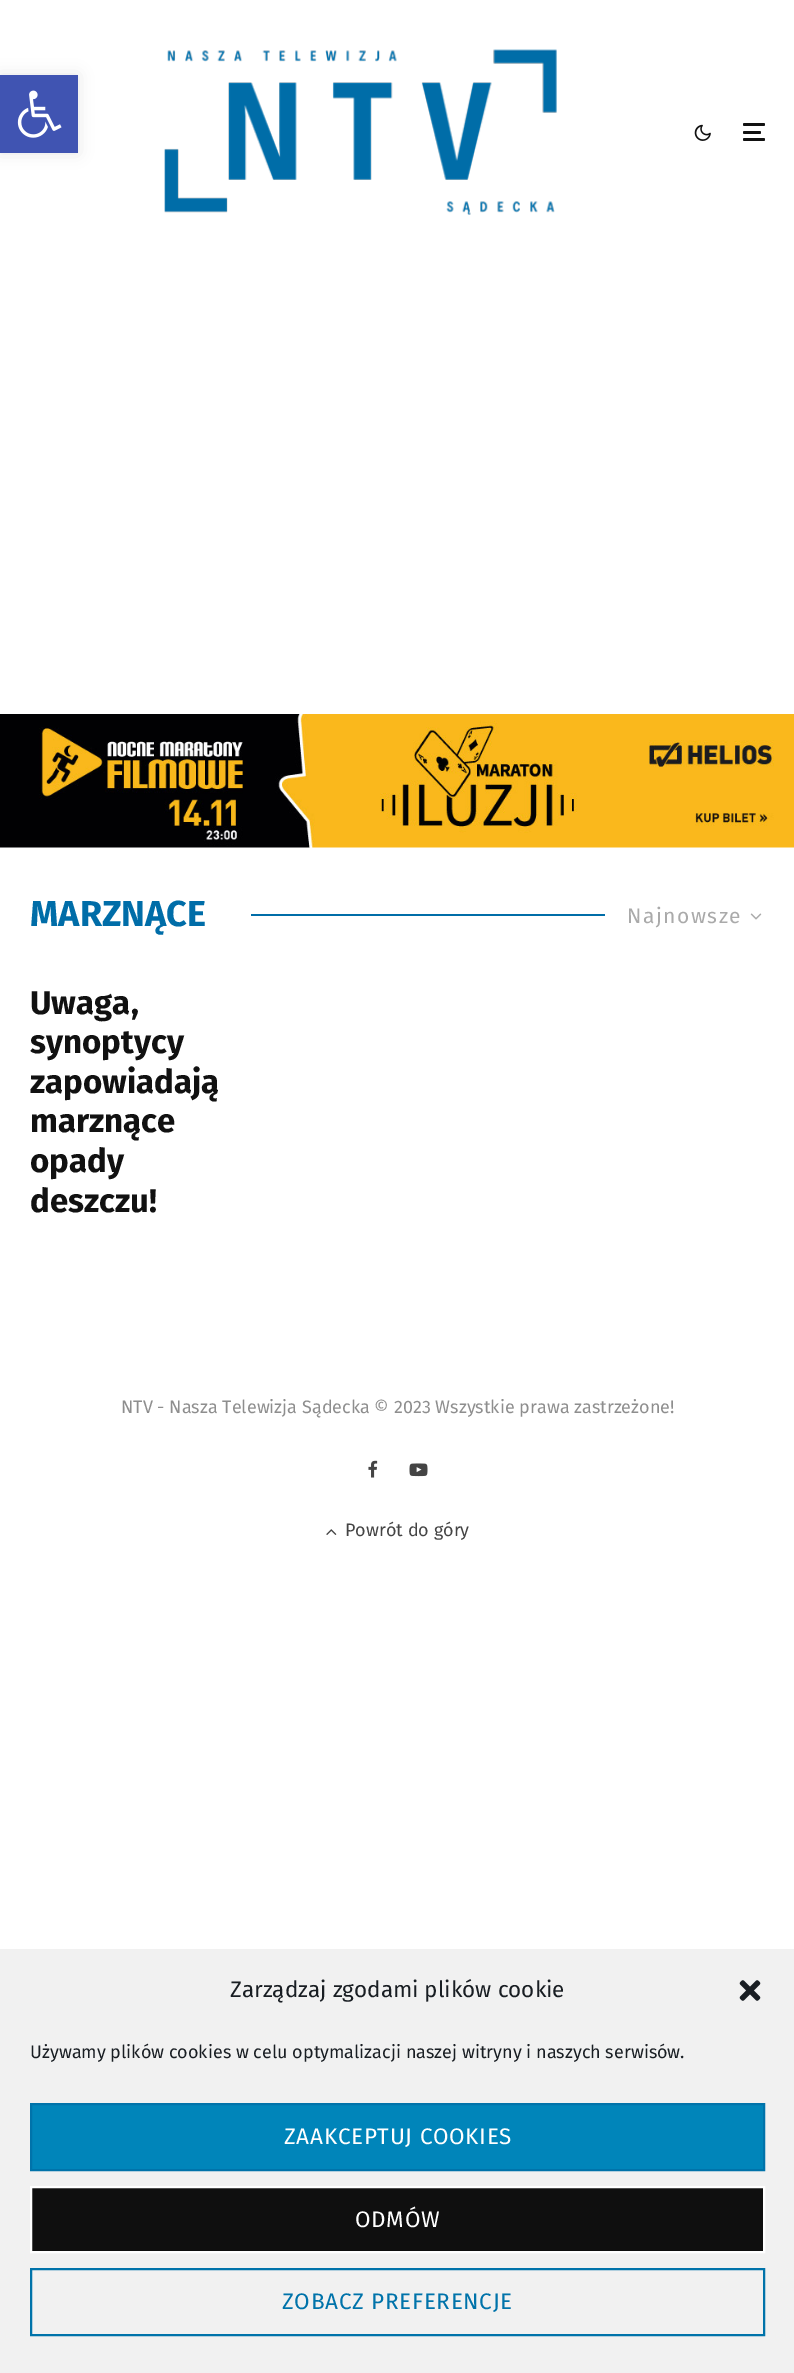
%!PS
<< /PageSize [794 2373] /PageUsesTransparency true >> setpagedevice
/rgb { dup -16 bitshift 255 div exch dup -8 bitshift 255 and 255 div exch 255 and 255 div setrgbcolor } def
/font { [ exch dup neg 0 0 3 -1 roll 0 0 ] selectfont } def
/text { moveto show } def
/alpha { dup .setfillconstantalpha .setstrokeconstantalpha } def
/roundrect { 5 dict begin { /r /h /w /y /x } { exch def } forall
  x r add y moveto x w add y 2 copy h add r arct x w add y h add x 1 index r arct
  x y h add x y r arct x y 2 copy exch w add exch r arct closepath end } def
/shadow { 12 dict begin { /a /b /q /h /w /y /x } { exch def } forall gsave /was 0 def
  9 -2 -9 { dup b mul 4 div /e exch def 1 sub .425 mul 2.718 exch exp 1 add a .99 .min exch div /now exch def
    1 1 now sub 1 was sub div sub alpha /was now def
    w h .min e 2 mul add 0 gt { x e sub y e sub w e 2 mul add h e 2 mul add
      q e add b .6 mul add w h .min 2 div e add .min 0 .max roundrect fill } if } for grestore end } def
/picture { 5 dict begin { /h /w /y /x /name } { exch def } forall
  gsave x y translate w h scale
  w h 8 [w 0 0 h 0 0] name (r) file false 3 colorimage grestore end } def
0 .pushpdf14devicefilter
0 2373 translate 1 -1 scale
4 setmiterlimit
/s1 { /FiraSans-Bold 36 font 16#006DA8 rgb } def
/s2 { /FiraSans-Bold 33 font 16#111111 rgb } def
/s3 { /FiraSans-Regular 18 font 16#8E8E8E rgb } def
/s4 { /FiraSans-Regular 18 font 16#444444 rgb } def
/s5 { /FiraSans-Regular 22.5 font 16#191E23 rgb } def
/s6 { /FiraSans-Regular 18 font 16#191E23 rgb } def
16#FFFFFF rgb
0 0 794 2373 rectfill
16#000000 rgb
0 75 78 78 0 7.5 0.1 shadow
16#4054B2 rgb
0 75 78 78 rectfill
(pic1.raw) 17 90 45 48 picture
(pic2.raw) 164 49 393 166 picture
(pic3.raw) 694 124 17 17 picture
16#111111 rgb
743 131 18 3 1.5 roundrect fill
743 123 22 3 1.5 roundrect fill
743 138 22 3 1.5 roundrect fill
(pic4.raw) 0 714 794 134 picture
s1
(MARZNĄCE) 30 926 text
251 914 354 2 rectfill
/FiraSans-Regular 21 font
16#AAAAAA rgb
627 923 moveto 1.5 0 (Najnowsze) ashow
(pic5.raw) 750 913 12 7 picture
s2
(Uwaga,) 30 1014 text
(synoptycy) 30 1053 text
(zapowiadają) 30 1093 text
(marznące) 30 1132 text
(opady) 30 1172 text
(deszczu!) 30 1212 text
s3
(NTV - Nasza Telewizja Sądecka © 2023 Wszystkie prawa zastrzeżone!) 121 1413 text
(pic6.raw) 368 1460 10 18 picture
(pic7.raw) 409 1463 19 14 picture
(pic8.raw) 326 1529 11 6 picture
s4
(Powrót do góry) 345 1536 text
16#F1F1F1 rgb
0 1949 794 424 rectfill
s5
(Zarządzaj zgodami plików cookie) 230 1997 text
(pic9.raw) 739 1980 22 21 picture
s6
(Używamy plików cookies w celu optymalizacji naszej witryny i naszych serwisów.) 30 2058 text
16#0085BA rgb
31 2104 moveto 764 2104 lineto 764 2170 lineto 31 2170 lineto closepath gsave fill grestore
16#0073AA rgb
2 setlinewidth
stroke
/FiraSans-Regular 22.5 font
16#FFFFFF rgb
284 2144 moveto 0.7 0 (ZAAKCEPTUJ COOKIES) ashow
16#0F0F0F rgb
31 2187 moveto 764 2187 lineto 764 2252 lineto 31 2252 lineto closepath gsave fill grestore
16#FFFFFF rgb
stroke
355 2227 moveto 0.7 0 (ODMÓW) ashow
16#0073AA rgb
31 2269 733 66 rectstroke
282 2309 moveto 0.7 0 (ZOBACZ PREFERENCJE) ashow
.poppdf14devicefilter showpage
